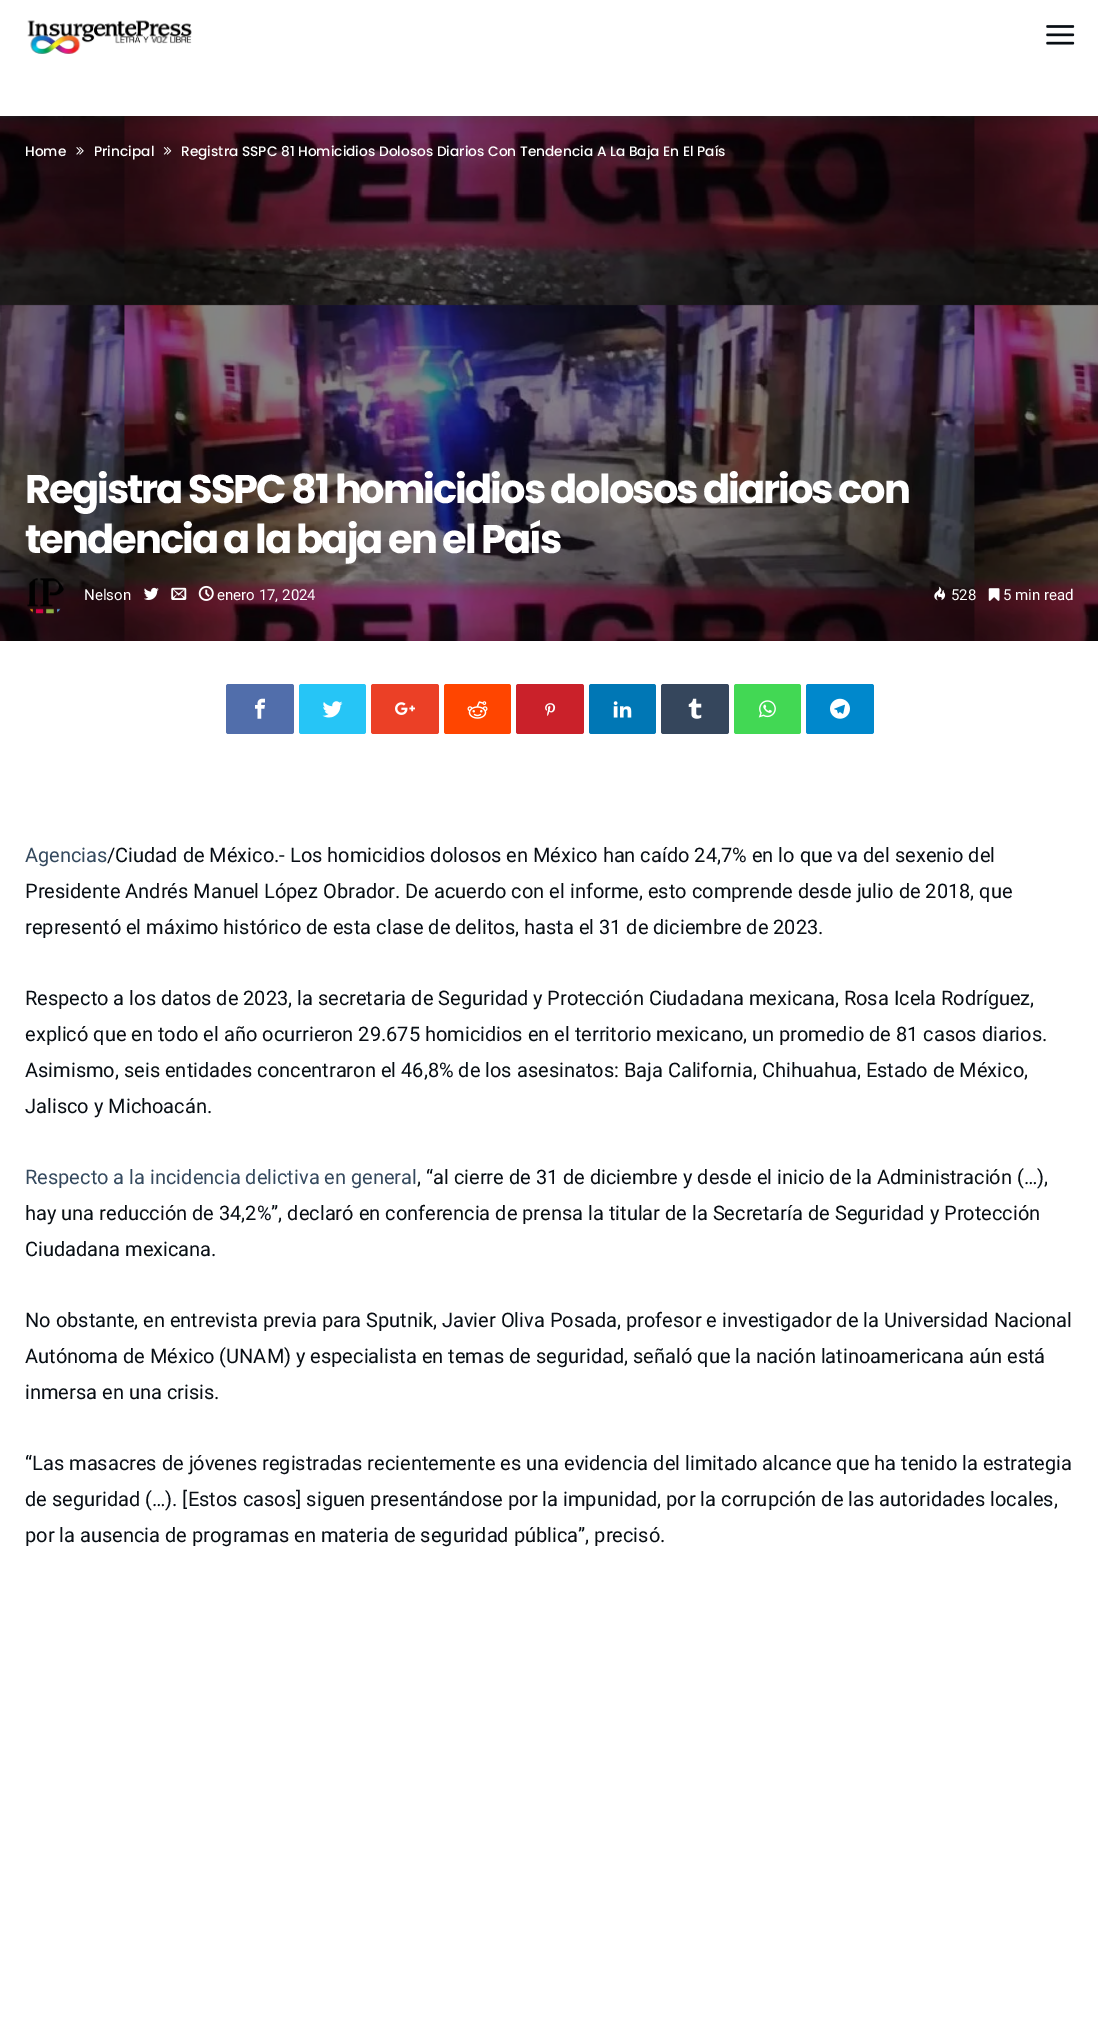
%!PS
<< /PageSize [1098 2023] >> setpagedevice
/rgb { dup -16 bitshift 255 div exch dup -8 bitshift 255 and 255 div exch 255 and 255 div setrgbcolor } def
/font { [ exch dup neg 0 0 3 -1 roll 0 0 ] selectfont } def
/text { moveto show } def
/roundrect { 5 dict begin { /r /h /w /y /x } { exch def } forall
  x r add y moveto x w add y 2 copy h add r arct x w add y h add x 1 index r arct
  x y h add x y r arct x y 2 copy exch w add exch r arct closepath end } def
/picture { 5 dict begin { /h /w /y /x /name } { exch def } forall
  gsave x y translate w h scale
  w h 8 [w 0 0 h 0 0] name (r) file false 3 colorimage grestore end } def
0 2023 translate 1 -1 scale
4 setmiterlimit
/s1 { /Poppins-Medium 13.75 font 16#FFFFFF rgb } def
/s2 { /Roboto-Regular 15 font 16#FFFFFF rgb } def
/s3 { /Roboto-Regular 20 font 16#34495E rgb } def
/s4 { /Roboto-Regular 20 font 16#080E14 rgb } def
16#FFFFFF rgb
0 0 1098 2023 rectfill
(pic1.raw) 0 116 1098 525 picture
(pic2.raw) 27 20 165 34 picture
(pic3.raw) 1046 25 29 20 picture
s1
(Home) 25 156 text
(pic4.raw) 76 147 8 8 picture
(Principal) 94 156 text
(pic5.raw) 163 147 9 8 picture
(Registra SSPC 81 Homicidios Dolosos Diarios Con Tendencia A La Baja En El País) 181 156 text
/Poppins-Bold 40 font
25 503 moveto -2 0 (Registra SSPC 81 homicidios dolosos diarios con) ashow
25 553 moveto -2 0 (tendencia a la baja en el País) ashow
(pic6.raw) 27 578 37 36 picture
s2
(Nelson) 84 600 text
(pic7.raw) 144 587 15 13 picture
(pic8.raw) 171 587 16 13 picture
(pic9.raw) 198 585 16 16 picture
(enero 17, 2024) 217 600 text
(pic10.raw) 934 586 12 15 picture
(528) 951 600 text
(pic11.raw) 988 588 12 13 picture
(5 min read) 1003 600 text
16#516EAB rgb
226 684 68 50 2.5 roundrect fill
(pic12.raw) 255 698 10 21 picture
16#26C5F6 rgb
299 684 67 50 2.5 roundrect fill
(pic13.raw) 322 701 21 17 picture
16#EB4026 rgb
371 684 68 50 2.5 roundrect fill
(pic14.raw) 395 702 20 13 picture
16#FF4500 rgb
444 684 67 50 2.5 roundrect fill
(pic15.raw) 467 701 21 18 picture
16#CA212A rgb
516 684 68 50 2.5 roundrect fill
(pic16.raw) 545 703 11 13 picture
16#0077B5 rgb
589 684 67 50 2.5 roundrect fill
(pic17.raw) 613 701 19 17 picture
16#35465C rgb
661 684 68 50 2.5 roundrect fill
(pic18.raw) 688 698 14 21 picture
16#42D854 rgb
734 684 67 50 2.5 roundrect fill
(pic19.raw) 758 700 18 18 picture
16#0088CC rgb
806 684 68 50 2.5 roundrect fill
(pic20.raw) 830 698 20 21 picture
s3
(Agencias) 25 862 text
s4
(/Ciudad de México.- Los homicidios dolosos en México han caído 24,7% en lo que va del sexenio del) 107 862 text
(Presidente Andrés Manuel López Obrador. De acuerdo con el informe, esto comprende desde julio de 2018, que) 25 898 text
(representó el máximo histórico de esta clase de delitos, hasta el 31 de diciembre de 2023.) 25 934 text
(Respecto a los datos de 2023, la secretaria de Seguridad y Protección Ciudadana mexicana, Rosa Icela Rodríguez,) 25 1005 text
(explicó que en todo el año ocurrieron 29.675 homicidios en el territorio mexicano, un promedio de 81 casos diarios.) 25 1041 text
(Asimismo, seis entidades concentraron el 46,8% de los asesinatos: Baja California, Chihuahua, Estado de México,) 25 1077 text
(Jalisco y Michoacán.) 25 1113 text
s3
(Respecto a la incidencia delictiva en general) 25 1184 text
s4
(, “al cierre de 31 de diciembre y desde el inicio de la Administración \(…\),) 417 1184 text
(hay una reducción de 34,2%”, declaró en conferencia de prensa la titular de la Secretaría de Seguridad y Protección) 25 1220 text
(Ciudadana mexicana.) 25 1256 text
(No obstante, en entrevista previa para Sputnik, Javier Oliva Posada, profesor e investigador de la Universidad Nacional) 25 1327 text
(Autónoma de México \(UNAM\) y especialista en temas de seguridad, señaló que la nación latinoamericana aún está) 25 1363 text
(inmersa en una crisis.) 25 1399 text
(“Las masacres de jóvenes registradas recientemente es una evidencia del limitado alcance que ha tenido la estrategia) 25 1470 text
(de seguridad \(…\). [Estos casos] siguen presentándose por la impunidad, por la corrupción de las autoridades locales,) 25 1506 text
(por la ausencia de programas en materia de seguridad pública”, precisó.) 25 1542 text
showpage
